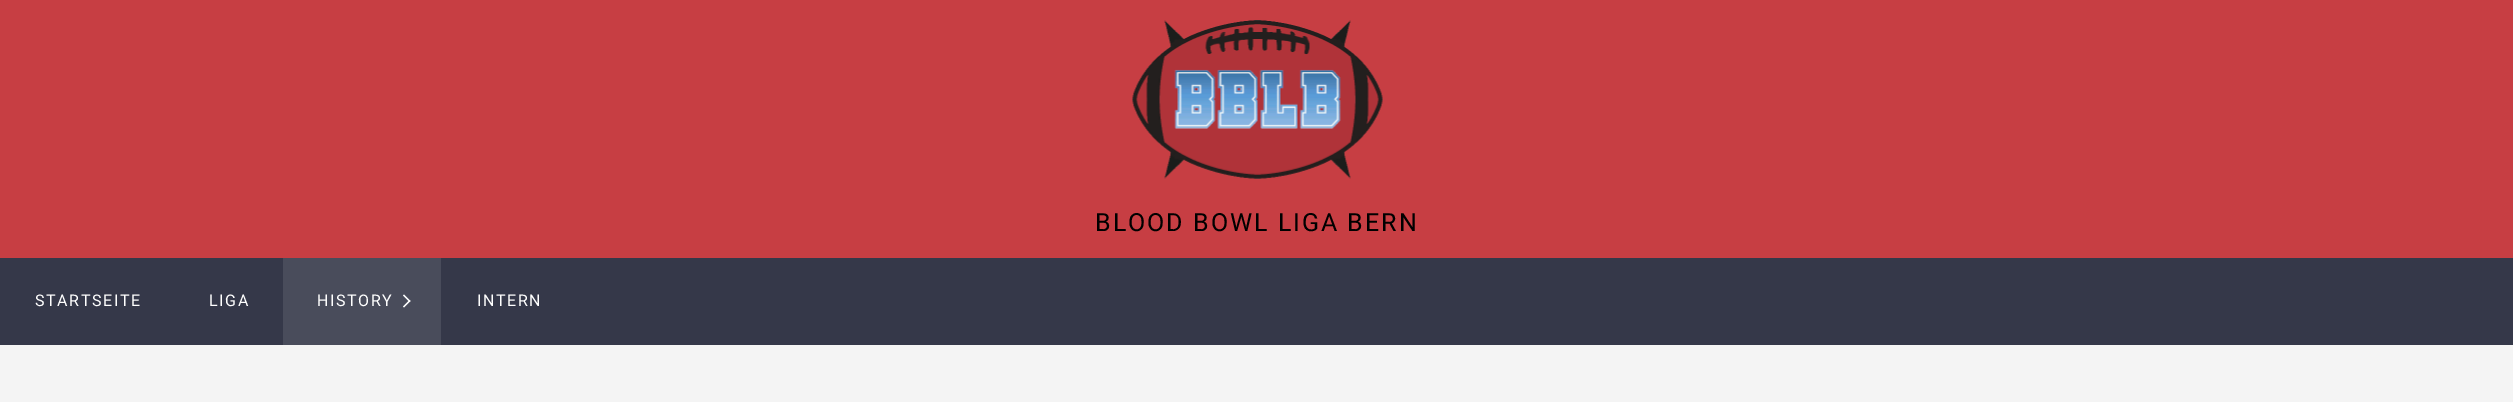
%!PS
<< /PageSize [2513 402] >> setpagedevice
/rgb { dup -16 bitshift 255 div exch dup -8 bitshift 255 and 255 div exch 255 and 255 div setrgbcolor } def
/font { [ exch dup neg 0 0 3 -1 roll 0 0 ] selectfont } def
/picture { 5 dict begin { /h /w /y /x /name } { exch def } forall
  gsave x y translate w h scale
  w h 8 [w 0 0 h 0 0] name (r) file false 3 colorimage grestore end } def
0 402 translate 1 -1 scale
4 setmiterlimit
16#C73E43 rgb
0 0 2513 402 rectfill
(pic1.raw) 1132 20 251 159 picture
/Roboto-Regular 25 font
16#000000 rgb
1095 231 moveto 2 0 (BLOOD BOWL LIGA BERN) ashow
16#353849 rgb
0 258 2513 87 rectfill
/Roboto-Regular 16 font
16#FFFFFF rgb
35 306 moveto 1.6 0 (STARTSEITE) ashow
209 306 moveto 1.6 0 (LIGA) ashow
16#494C5B rgb
283 258 158 87 rectfill
16#FFFFFF rgb
317 306 moveto 1.6 0 (HISTORY) ashow
404 294.5 moveto 410.5 301 lineto 409.5 302 lineto 403 295.5 lineto closepath fill
409.5 300 moveto 410.5 301 lineto 404 307.5 lineto 403 306.5 lineto closepath fill
477 306 moveto 1.6 0 (INTERN) ashow
16#F4F4F4 rgb
0 345 2513 57 rectfill
showpage
